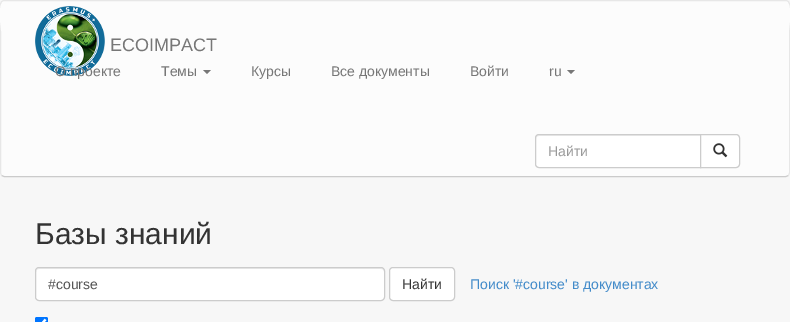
%!PS
<< /PageSize [790 322] >> setpagedevice
/rgb { dup -16 bitshift 255 div exch dup -8 bitshift 255 and 255 div exch 255 and 255 div setrgbcolor } def
/font { [ exch dup neg 0 0 3 -1 roll 0 0 ] selectfont } def
/text { moveto show } def
/roundrect { 5 dict begin { /r /h /w /y /x } { exch def } forall
  x r add y moveto x w add y 2 copy h add r arct x w add y h add x 1 index r arct
  x y h add x y r arct x y 2 copy exch w add exch r arct closepath end } def
/picture { 5 dict begin { /h /w /y /x /name } { exch def } forall
  gsave x y translate w h scale
  w h 8 [w 0 0 h 0 0] name (r) file false 3 colorimage grestore end } def
0 322 translate 1 -1 scale
4 setmiterlimit
/s1 { /LiberationSans-Regular 18 font 16#777777 rgb } def
/s2 { /LiberationSans-Regular 14 font 16#777777 rgb } def
/s3 { /LiberationSans-Regular 14 font 16#999999 rgb } def
/s4 { /LiberationSans-Regular 30 font 16#333333 rgb } def
/s5 { /LiberationSans-Regular 14 font 16#555555 rgb } def
/s6 { /LiberationSans-Regular 14 font 16#333333 rgb } def
/s7 { /LiberationSans-Regular 14 font 16#428BCA rgb } def
16#F7F7F7 rgb
0 0 790 322 rectfill
16#FCFCFC rgb
0 0 790 177 4 roundrect fill
16#CBCBCB rgb
788.5 175.5 moveto 786 176.5 lineto 4 176.5 lineto 1.5 175.5 lineto stroke
16#E7E7E7 rgb
1.5 175.5 moveto 0.5 173 lineto 0.5 32 lineto 0.5 30.5 -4.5 0.5 4 0.5 curveto 786 0.5 lineto 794.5 0.5 789.5 30.5 789.5 32 curveto 789.5 173 lineto 788.5 175.5 lineto stroke
(pic1.raw) 35 6 70 70 picture
s1
(ECOIMPACT) 110 51 text
s2
(О проекте) 55 76 text
(Темы) 161 76 text
203 70 moveto 211 70 lineto 207 74 lineto closepath fill
(Курсы) 251 76 text
(Все документы) 331 76 text
(Войти) 470 76 text
(ru) 549 76 text
567 70 moveto 575 70 lineto 571 74 lineto closepath fill
16#FFFFFF rgb
539 134 moveto 701 134 lineto 701 168 lineto 539 168 lineto 537 168 535 166 535 164 curveto 535 138 lineto 535 136 537 134 539 134 curveto closepath fill
16#ECECEC rgb
539 136 moveto 700 136 lineto 700 135 lineto 539 135 lineto 537 135 536 137 536 139 curveto 536 137 537 136 539 136 curveto closepath fill
16#CCCCCC rgb
539 134.5 moveto 700.5 134.5 lineto 700.5 167.5 lineto 539 167.5 lineto 537 167.5 535.5 166 535.5 164 curveto 535.5 138 lineto 535.5 136 537 134.5 539 134.5 curveto closepath stroke
s3
(Найти) 548 156 text
16#FFFFFF rgb
700.5 134.5 moveto 736 134.5 lineto 738 134.5 739.5 136 739.5 138 curveto 739.5 164 lineto 739.5 166 738 167.5 736 167.5 curveto 700.5 167.5 lineto closepath gsave fill grestore
16#CCCCCC rgb
stroke
(pic2.raw) 713 143 15 15 picture
s4
(Базы знаний) 35 244 text
16#FFFFFF rgb
35 267 350 34 4 roundrect fill
16#ECECEC rgb
39 269 moveto 381 269 lineto 383 269 384 270 384 272 curveto 384 270 383 268 381 268 curveto 39 268 lineto 37 269 lineto 36 272 lineto 36 270 37 269 39 269 curveto closepath fill
16#CCCCCC rgb
35.5 267.5 349 33 3.5 roundrect stroke
s5
(#course) 48 289 text
16#FFFFFF rgb
389.5 267.5 65 33 3.5 roundrect gsave fill grestore
16#CCCCCC rgb
stroke
s6
(Найти) 402 289 text
s7
(Поиск '#course' в документах) 470 289 text
16#0075FF rgb
35 317 13 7 2 roundrect fill
16#FFFFFF rgb
2.1 setlinewidth
37.5 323.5 moveto 40 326 lineto 45.5 319.5 lineto stroke
showpage
